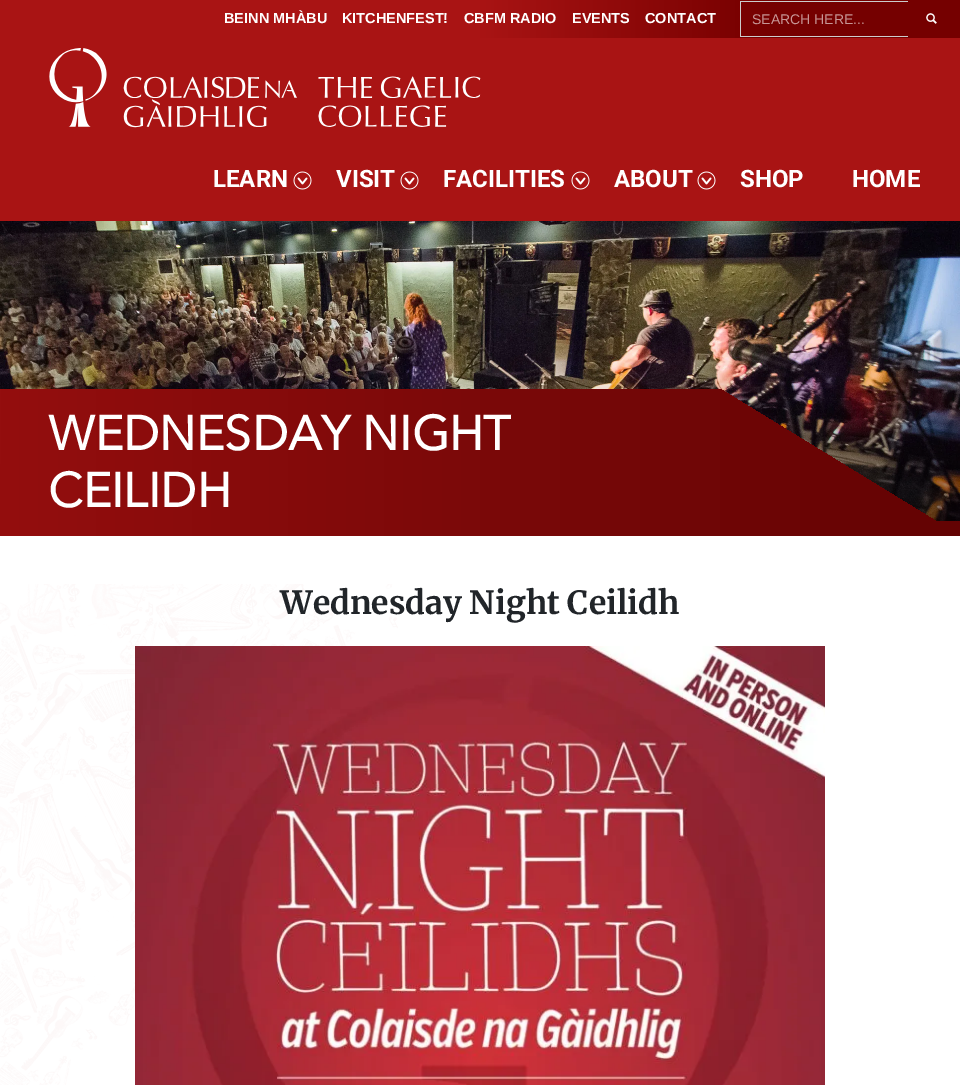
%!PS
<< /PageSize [960 1085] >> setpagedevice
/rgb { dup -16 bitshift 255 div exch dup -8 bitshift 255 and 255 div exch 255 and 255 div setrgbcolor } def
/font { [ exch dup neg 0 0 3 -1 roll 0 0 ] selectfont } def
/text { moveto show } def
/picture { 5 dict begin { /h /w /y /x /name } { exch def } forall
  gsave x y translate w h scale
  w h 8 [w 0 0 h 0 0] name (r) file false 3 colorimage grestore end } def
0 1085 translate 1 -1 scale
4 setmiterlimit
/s1 { /LiberationSans-Bold 14.5 font 16#FFFFFF rgb } def
/s2 { /LiberationSans-Regular 14 font 16#C79696 rgb } def
/s3 { /Roboto-Bold 24 font 16#FFFFFF rgb } def
/s4 { /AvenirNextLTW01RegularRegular-Bold 48 font 16#FFFFFF rgb } def
/s5 { /Merriweather-Bold 32 font 16#212529 rgb } def
16#FFFFFF rgb
0 0 960 1085 rectfill
16#A91414 rgb
0 38 960 183 rectfill
gsave 0 0 moveto 960 0 lineto 960 38 lineto 0 38 lineto closepath clip newpath
<< /ShadingType 2 /ColorSpace /DeviceRGB /Coords [0 19 960 19] /Extend [true true] /Function << /FunctionType 3 /Domain [0 1] /Functions [<< /FunctionType 2 /Domain [0 1] /C0 [0.663 0.078 0.078] /C1 [0.663 0.078 0.078] /N 1 >> << /FunctionType 2 /Domain [0 1] /C0 [0.663 0.078 0.078] /C1 [0.459 0 0] /N 1 >> << /FunctionType 2 /Domain [0 1] /C0 [0.459 0 0] /C1 [0.459 0 0] /N 1 >>] /Bounds [0.5 0.8] /Encode [0 1 0 1 0 1] >> >> shfill grestore
s1
(BEINN MHÀBU) 224 23 text
(KITCHENFEST!) 342 23 text
(CBFM RADIO) 464 23 text
(EVENTS) 572 23 text
(CONTACT) 645 23 text
16#CCCCCC rgb
740 1 168 1 rectfill
740 36 168 1 rectfill
740 1 1 36 rectfill
s2
(SEARCH HERE...) 752 24 text
(pic1.raw) 926 13 11 11 picture
(pic2.raw) 49 48 432 80 picture
s3
(LEARN) 213 187 text
(pic3.raw) 293 171 19 19 picture
(VISIT) 336 187 text
(pic3.raw) 400 171 19 19 picture
(FACILITIES) 443 187 text
(pic3.raw) 571 171 19 19 picture
(ABOUT) 614 187 text
(pic3.raw) 697 171 19 19 picture
(SHOP) 740 187 text
(HOME) 852 187 text
16#630303 rgb
935 521 25 15 rectfill
(pic4.raw) 0 221 960 300 picture
gsave 0 389 moveto 0 536 lineto 960 536 lineto 720 389 lineto closepath clip newpath
<< /ShadingType 2 /ColorSpace /DeviceRGB /Coords [960 463 0 462] /Extend [true true] /Function << /FunctionType 2 /Domain [0 1] /C0 [0.388 0.012 0.012] /C1 [0.58 0.055 0.055] /N 1 >> >> shfill grestore
s4
(WEDNESDAY NIGHT) 48 450 text
(CEILIDH) 48 507 text
(pic5.raw) 0 584 398 501 picture
s5
(Wednesday Night Ceilidh) 280 614 text
(pic6.raw) 135 646 690 439 picture
showpage
